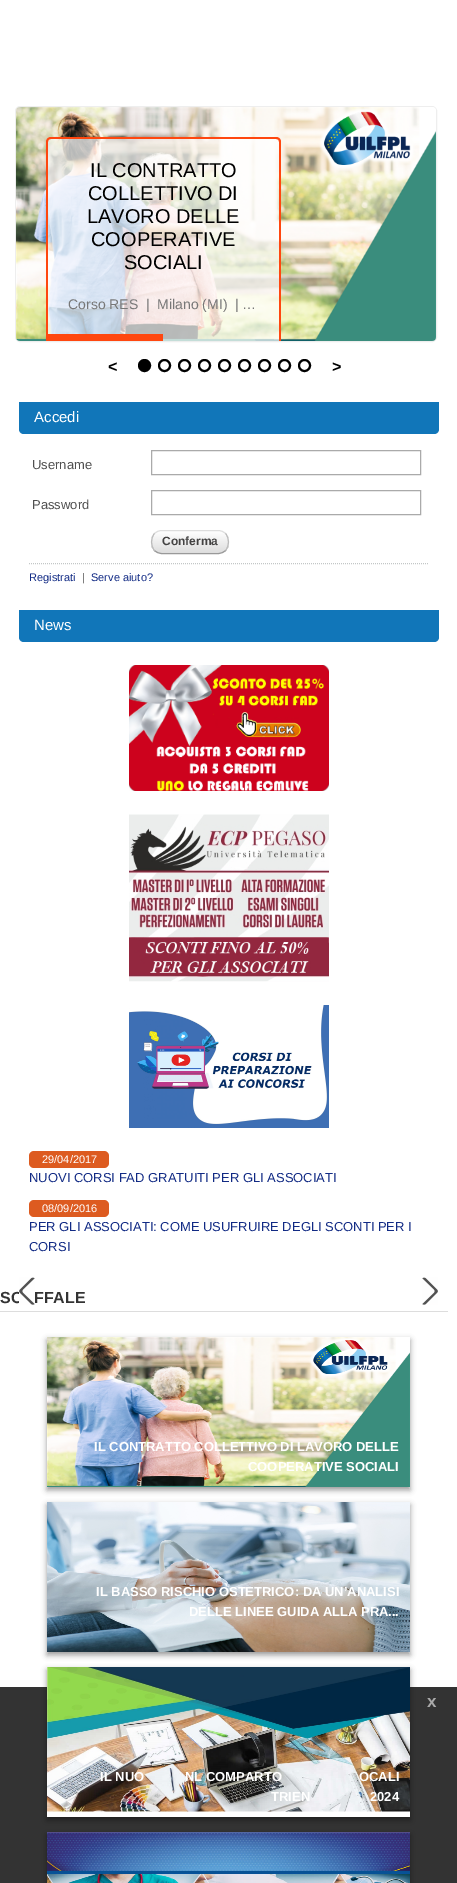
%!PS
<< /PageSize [457 1883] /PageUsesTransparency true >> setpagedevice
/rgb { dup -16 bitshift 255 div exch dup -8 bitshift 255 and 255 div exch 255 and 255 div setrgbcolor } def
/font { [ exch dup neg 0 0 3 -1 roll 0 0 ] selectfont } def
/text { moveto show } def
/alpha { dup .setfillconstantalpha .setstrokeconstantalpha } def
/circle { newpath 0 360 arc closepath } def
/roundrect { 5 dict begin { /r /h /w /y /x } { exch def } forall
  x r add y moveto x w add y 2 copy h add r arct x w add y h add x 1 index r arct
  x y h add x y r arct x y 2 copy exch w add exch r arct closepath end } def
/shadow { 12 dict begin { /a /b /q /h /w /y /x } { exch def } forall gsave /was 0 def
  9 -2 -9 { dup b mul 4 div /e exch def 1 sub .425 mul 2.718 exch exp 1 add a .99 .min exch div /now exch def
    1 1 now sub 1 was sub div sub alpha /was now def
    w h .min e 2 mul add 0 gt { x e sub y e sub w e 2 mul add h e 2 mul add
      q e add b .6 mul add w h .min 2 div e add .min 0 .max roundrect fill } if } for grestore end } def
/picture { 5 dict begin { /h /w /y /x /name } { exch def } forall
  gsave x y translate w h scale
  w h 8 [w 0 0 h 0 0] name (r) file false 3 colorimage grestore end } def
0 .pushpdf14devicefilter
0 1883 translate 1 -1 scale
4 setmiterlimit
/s1 { /Arimo-Regular 20 font 16#000000 rgb } def
/s2 { /Arimo-Regular 14 font 16#777777 rgb } def
/s3 { /Arimo-Bold 16 font 16#000000 rgb } def
/s4 { /Arimo-Regular 15 font 16#FFFFFF rgb } def
/s5 { /LiberationSans-Regular 13 font 16#505050 rgb } def
/s6 { /LiberationSans-Bold 12 font 16#444343 rgb } def
/s7 { /Arimo-Regular 11 font 16#112A84 rgb } def
/s8 { /Arimo-Regular 11 font 16#505050 rgb } def
/s9 { /Arimo-Regular 11 font 16#FFFFFF rgb } def
/s10 { /Arimo-Regular 13 font 16#112A84 rgb } def
/s11 { /Arimo-Bold 16 font 16#333333 rgb } def
/s12 { /Arimo-Bold 13 font 16#FFFFFF rgb } def
/s13 { /Arimo-Bold 17 font 16#AAAAAA rgb } def
16#FFFFFF rgb
0 0 457 1883 rectfill
16#EEEEEE rgb
15.5 106.5 421 235 4.5 roundrect stroke
(pic1.raw) 16 107 420 234 picture
0.7 alpha
16#FFFFFF rgb
51 137 moveto 276 137 lineto 279 137 281 139 281 142 curveto 281 341 lineto 46 341 lineto 46 142 lineto 46 139 48 137 51 137 curveto closepath fill
1 alpha
16#FF470F rgb
51 137 moveto 48 137 46 139 46 142 curveto 46 341 lineto 48 341 lineto 48 142 lineto 48 140 49 139 51 139 curveto 276 139 lineto 278 139 279 140 279 142 curveto 279 341 lineto 281 341 lineto 281 142 lineto 281 139 279 137 276 137 curveto closepath fill
s1
(IL CONTRATTO) 90 177 text
(COLLETTIVO DI) 88 200 text
(LAVORO DELLE) 87 223 text
(COOPERATIVE) 91 246 text
(SOCIALI) 124 269 text
s2
(Corso RES  |  Milano \(MI\)  | …) 68 309 text
16#FF470F rgb
48 334 115 7 rectfill
s3
(<) 108 372 text
144.5 365.5 5.5 circle gsave fill grestore
2 setlinewidth
stroke
164.5 365.5 5.5 circle stroke
184.5 365.5 5.5 circle stroke
204.5 365.5 5.5 circle stroke
224.5 365.5 5.5 circle stroke
244.5 365.5 5.5 circle stroke
264.5 365.5 5.5 circle stroke
284.5 365.5 5.5 circle stroke
304.5 365.5 5.5 circle stroke
(>) 332 372 text
16#1176B9 rgb
19 402 moveto 439 402 lineto 439 429 lineto 439 432 437 434 434 434 curveto 24 434 lineto 21 434 19 432 19 429 curveto closepath fill
s4
(Accedi) 34 422 text
s5
(Username) 32 469 text
16#AAAAAA rgb
1 setlinewidth
151.5 450.5 269 24 rectstroke
s5
(Password) 32 509 text
16#AAAAAA rgb
151.5 490.5 269 24 rectstroke
gsave
151 530 78 24 11 roundrect clip newpath
gsave 151 531 moveto 229 531 lineto 229 553 lineto 151 553 lineto closepath clip newpath
<< /ShadingType 2 /ColorSpace /DeviceRGB /Coords [152 531 152 553] /Extend [true true] /Function << /FunctionType 2 /Domain [0 1] /C0 [1 1 1] /C1 [0.867 0.867 0.867] /N 1 >> >> shfill grestore
grestore
16#DDDDDD rgb
154.5 533.5 moveto 156.5 531.5 159 530.5 162 530.5 curveto 218 530.5 lineto 221 530.5 223.5 531.5 225.5 533.5 curveto stroke
16#BBBBBB rgb
225.5 533.5 moveto 229.5 538 229.5 546 225.5 550.5 curveto stroke
16#999999 rgb
225.5 550.5 moveto 223.5 552.5 221 553.5 218 553.5 curveto 162 553.5 lineto 159 553.5 156.5 552.5 154.5 550.5 curveto stroke
16#BBBBBB rgb
154.5 550.5 moveto 150.5 546 150.5 538 154.5 533.5 curveto stroke
s6
(Conferma) 162 545 text
16#C3C7C7 rgb
[1 1] 0 setdash
29 563.5 moveto 429 563.5 lineto stroke
s7
(Registrati) 29 581 text
s8
(|) 82 581 text
s7
(Serve aiuto?) 91 581 text
16#1176B9 rgb
19 610 moveto 439 610 lineto 439 637 lineto 439 640 437 642 434 642 curveto 24 642 lineto 21 642 19 640 19 637 curveto closepath fill
s4
(News) 34 630 text
(pic2.raw) 129 665 200 126 picture
(pic3.raw) 129 814 200 168 picture
(pic4.raw) 129 1005 200 123 picture
16#DD5B20 rgb
29 1151 80 17 5 roundrect fill
s9
(29/04/2017) 42 1163 text
s10
(NUOVI CORSI FAD GRATUITI PER GLI ASSOCIATI) 29 1182 text
16#DD5B20 rgb
29 1200 80 17 5 roundrect fill
s9
(08/09/2016) 42 1212 text
s10
(PER GLI ASSOCIATI: COME USUFRUIRE DEGLI SCONTI PER I) 29 1231 text
(CORSI) 29 1251 text
16#DDDDDD rgb
0 1311 448 1 rectfill
s11
(SCAFFALE) 0 1303 text
(pic5.raw) 19 1277 16 28 picture
(pic6.raw) 422 1277 16 28 picture
16#323232 rgb
47 1340 363 150 0 3 0.5 shadow
(pic7.raw) 47 1337 363 150 picture
s12
(IL CONTRATTO COLLETTIVO DI LAVORO DELLE) 94 1451 text
(COOPERATIVE SOCIALI) 248 1471 text
16#323232 rgb
47 1505 363 150 0 3 0.5 shadow
(pic8.raw) 47 1502 363 150 picture
s12
(IL BASSO RISCHIO OSTETRICO: DA UN’ANALISI) 96 1596 text
(DELLE LINEE GUIDA ALLA PRA...) 189 1616 text
16#323232 rgb
47 1670 363 150 0 3 0.5 shadow
47 1835 363 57 0 3 0.5 shadow
0.8 alpha
16#000000 rgb
0 1687 457 196 rectfill
1 alpha
(pic9.raw) 47 1667 363 150 picture
s12
(IL NUO) 100 1781 text
(NL COMPARTO) 185 1781 text
(OCALI) 359 1781 text
(TRIEN) 271 1801 text
(2024) 370 1801 text
(pic10.raw) 47 1832 363 51 picture
s13
(x) 427 1707 text
.poppdf14devicefilter showpage
